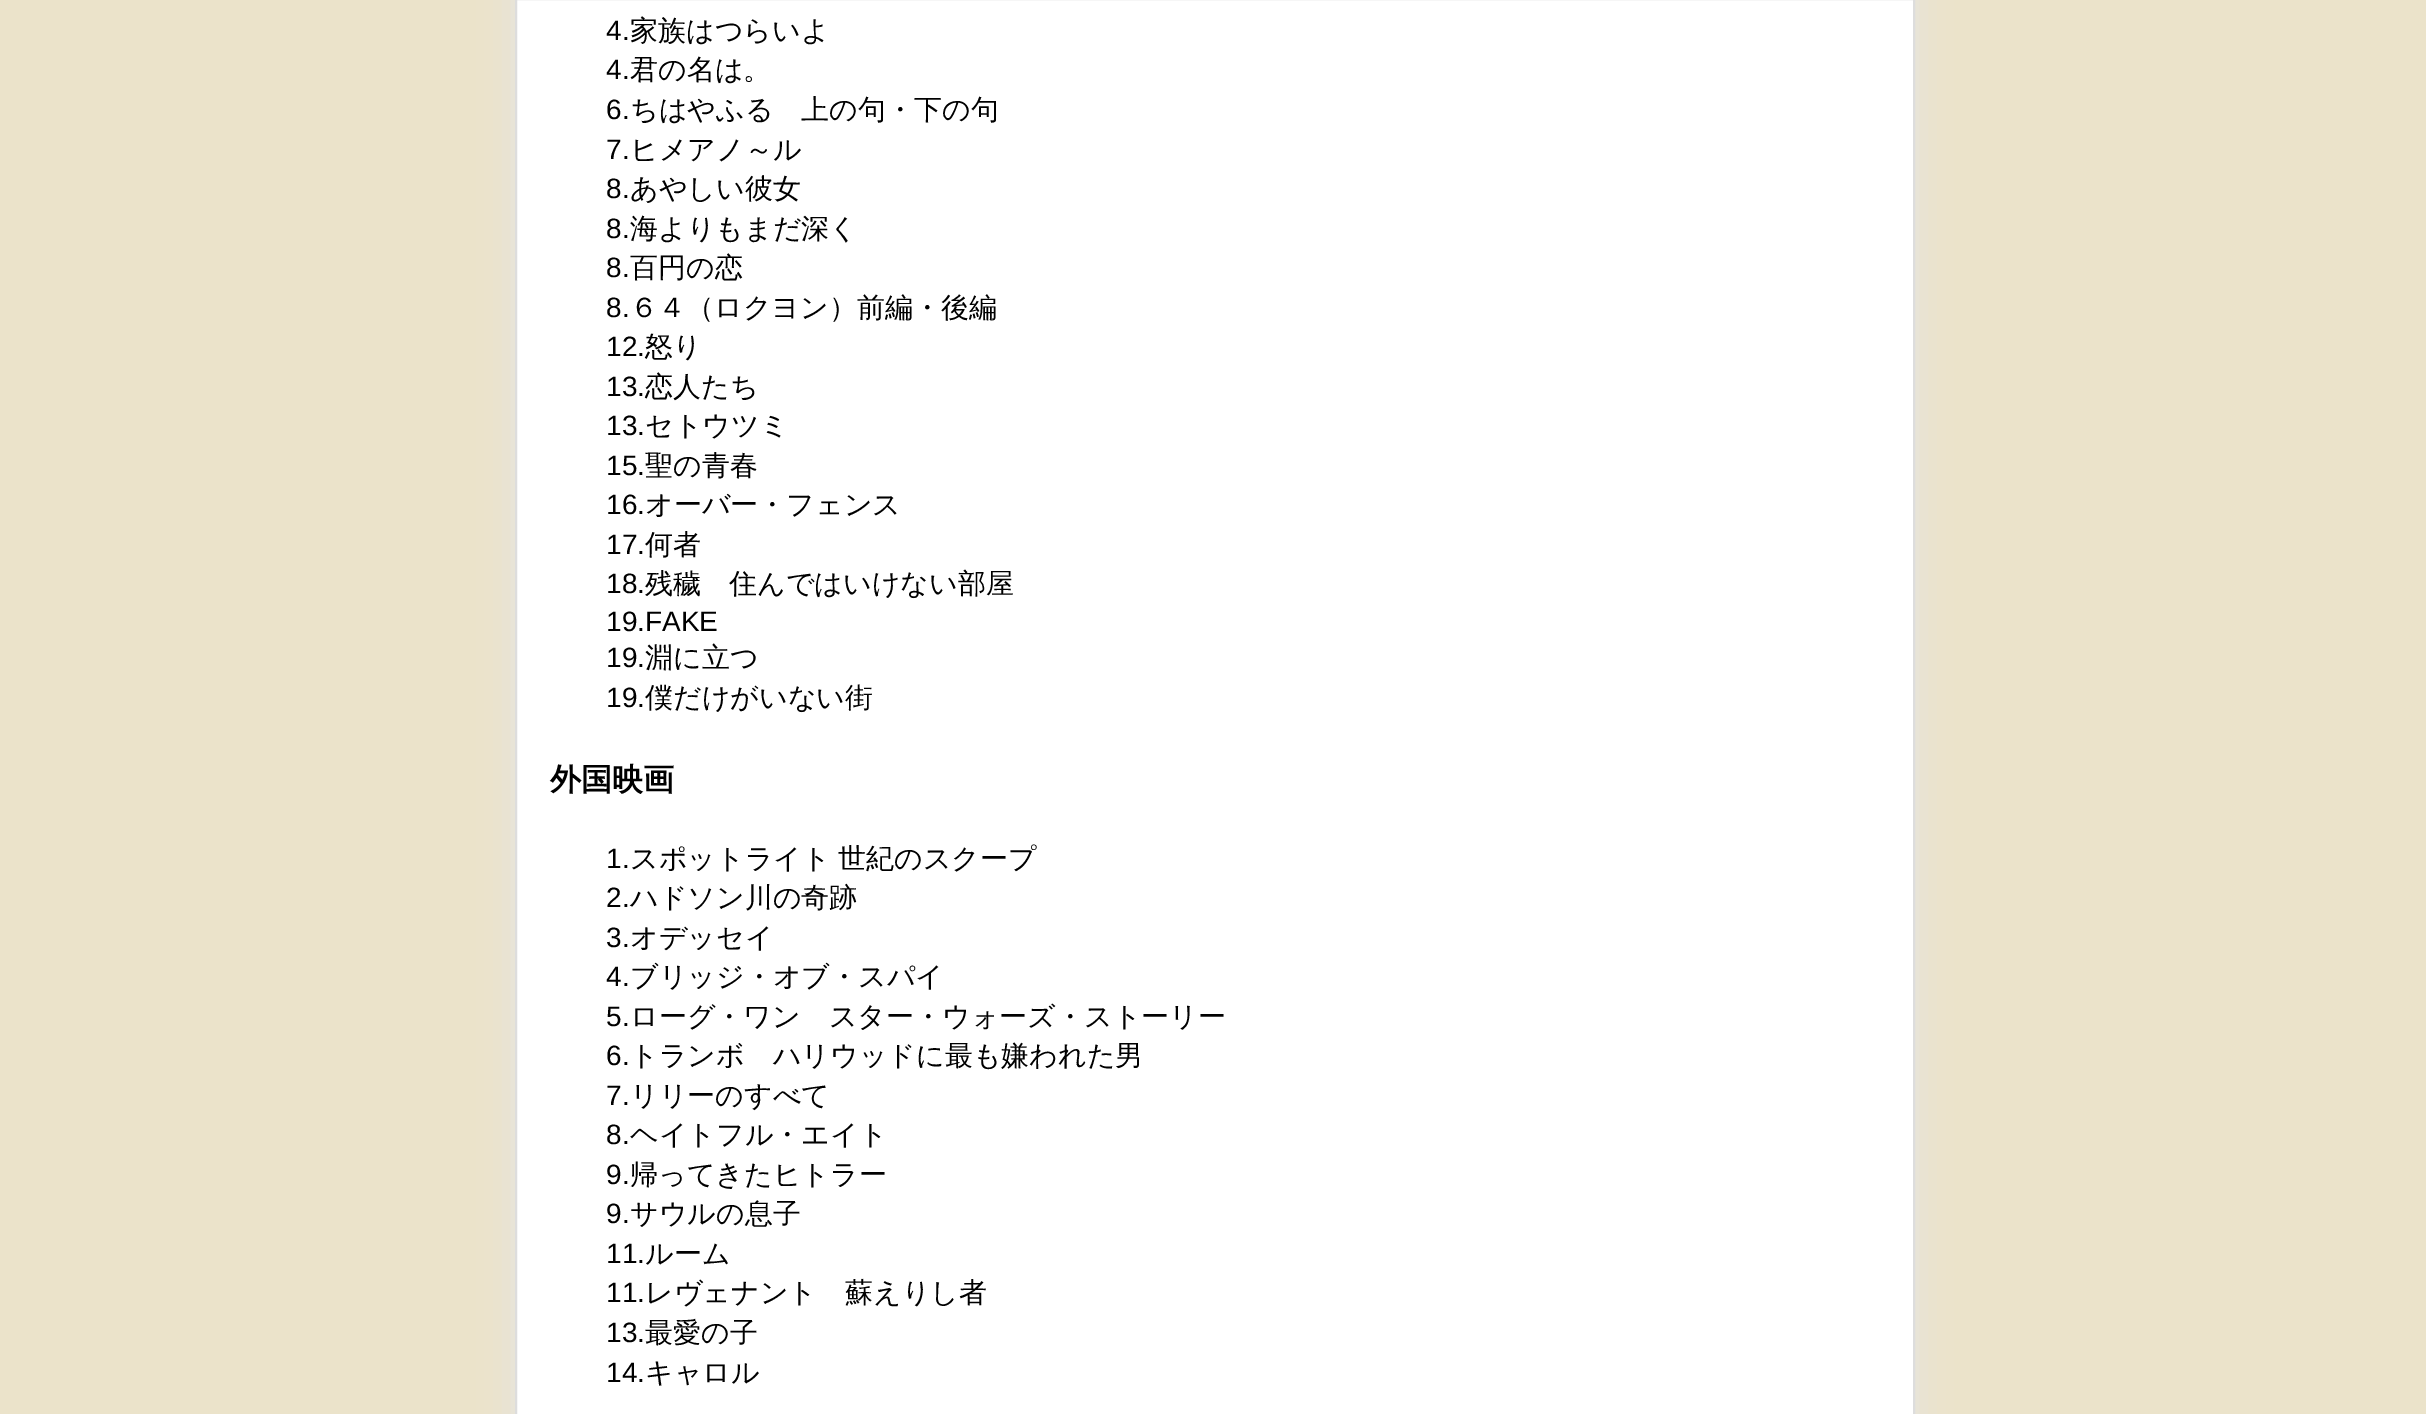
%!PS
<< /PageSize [2426 1414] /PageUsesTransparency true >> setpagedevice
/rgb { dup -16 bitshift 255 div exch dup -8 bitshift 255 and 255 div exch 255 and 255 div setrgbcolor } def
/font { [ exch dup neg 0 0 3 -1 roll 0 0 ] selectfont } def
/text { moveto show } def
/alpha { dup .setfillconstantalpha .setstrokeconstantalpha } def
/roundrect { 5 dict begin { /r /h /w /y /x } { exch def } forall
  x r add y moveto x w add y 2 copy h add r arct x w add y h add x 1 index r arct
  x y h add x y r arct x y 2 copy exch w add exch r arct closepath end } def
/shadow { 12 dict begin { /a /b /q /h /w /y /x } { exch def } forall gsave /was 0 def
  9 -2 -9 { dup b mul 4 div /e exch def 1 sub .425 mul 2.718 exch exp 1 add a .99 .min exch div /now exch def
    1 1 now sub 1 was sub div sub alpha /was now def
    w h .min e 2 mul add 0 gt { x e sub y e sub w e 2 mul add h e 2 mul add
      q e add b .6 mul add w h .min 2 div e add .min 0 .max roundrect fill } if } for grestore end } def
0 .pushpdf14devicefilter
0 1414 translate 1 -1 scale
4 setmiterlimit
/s1 { /LiberationSans-Regular 28 font 16#000000 rgb } def
/s2 { /WenQuanYiZenHei-Medium 28 font 16#000000 rgb } def
/s3 { /WenQuanYiZenHei-Bold 31 font 16#000000 rgb } def
16#EBE3CA rgb
0 0 2426 1414 rectfill
16#E5E5E5 rgb
515 -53 1400 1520 0 17.5 1 shadow
16#FFFFFF rgb
516 -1 moveto 1914 -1 lineto 1914 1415 lineto 516 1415 lineto closepath gsave fill grestore
16#DDDDDD rgb
2 setlinewidth
stroke
s1
(4.) 606 40 text
s2
(家族はつらいよ) 630 40 text
s1
(4.) 606 79 text
s2
(君の名は。) 630 79 text
s1
(6.) 606 119 text
s2
(ちはやふる　上の句・下の句) 630 119 text
s1
(7.) 606 159 text
s2
(ヒメアノ～ル) 630 159 text
s1
(8.) 606 198 text
s2
(あやしい彼女) 630 198 text
s1
(8.) 606 238 text
s2
(海よりもまだ深く) 630 238 text
s1
(8.) 606 277 text
s2
(百円の恋) 630 277 text
s1
(8.) 606 317 text
s2
(６４（ロクヨン）前編・後編) 630 317 text
s1
(12.) 606 356 text
s2
(怒り) 645 356 text
s1
(13.) 606 396 text
s2
(恋人たち) 645 396 text
s1
(13.) 606 435 text
s2
(セトウツミ) 645 435 text
s1
(15.) 606 475 text
s2
(聖の青春) 645 475 text
s1
(16.) 606 514 text
s2
(オーバー・フェンス) 645 514 text
s1
(17.) 606 554 text
s2
(何者) 645 554 text
s1
(18.) 606 593 text
s2
(残穢　住んではいけない部屋) 645 593 text
s1
(19.FAKE) 606 631 text
(19.) 606 667 text
s2
(淵に立つ) 645 667 text
s1
(19.) 606 707 text
s2
(僕だけがいない街) 645 707 text
s3
(外国映画) 550 790 text
s1
(1.) 606 868 text
/WenQuanYiZenHei-Medium 28 font
630 868 moveto -1 0 32 (スポットライト 世紀のスクープ) widthshow
s1
(2.) 606 907 text
s2
(ハドソン川の奇跡) 630 907 text
s1
(3.) 606 947 text
s2
(オデッセイ) 630 947 text
s1
(4.) 606 986 text
s2
(ブリッジ・オブ・スパイ) 630 986 text
s1
(5.) 606 1026 text
s2
(ローグ・ワン　スター・ウォーズ・ストーリー) 630 1026 text
s1
(6.) 606 1065 text
s2
(トランボ　ハリウッドに最も嫌われた男) 630 1065 text
s1
(7.) 606 1105 text
s2
(リリーのすべて) 630 1105 text
s1
(8.) 606 1144 text
s2
(ヘイトフル・エイト) 630 1144 text
s1
(9.) 606 1184 text
s2
(帰ってきたヒトラー) 630 1184 text
s1
(9.) 606 1223 text
s2
(サウルの息子) 630 1223 text
s1
(11.) 606 1263 text
s2
(ルーム) 645 1263 text
s1
(11.) 606 1302 text
s2
(レヴェナント　蘇えりし者) 645 1302 text
s1
(13.) 606 1342 text
s2
(最愛の子) 645 1342 text
s1
(14.) 606 1382 text
s2
(キャロル) 645 1382 text
.poppdf14devicefilter showpage
